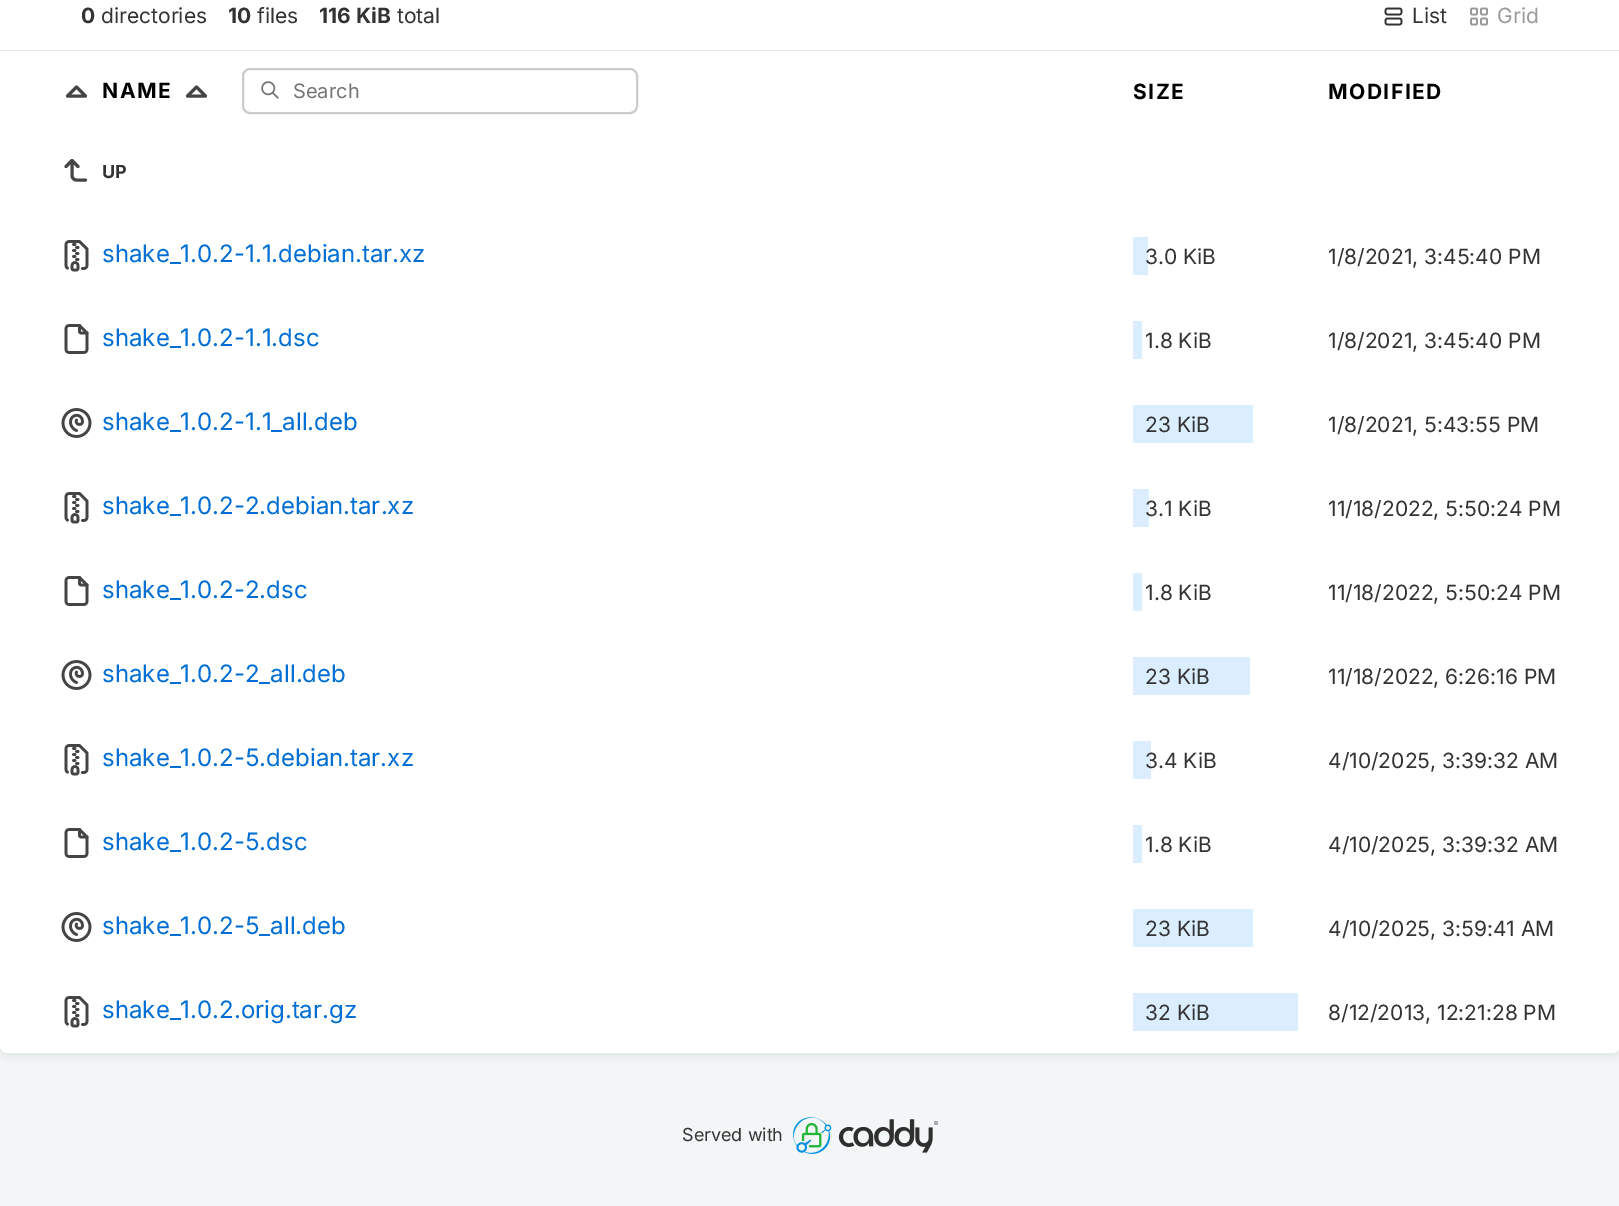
%!PS
<< /PageSize [1619 1206] /PageUsesTransparency true >> setpagedevice
/rgb { dup -16 bitshift 255 div exch dup -8 bitshift 255 and 255 div exch 255 and 255 div setrgbcolor } def
/font { [ exch dup neg 0 0 3 -1 roll 0 0 ] selectfont } def
/text { moveto show } def
/alpha { dup .setfillconstantalpha .setstrokeconstantalpha } def
/roundrect { 5 dict begin { /r /h /w /y /x } { exch def } forall
  x r add y moveto x w add y 2 copy h add r arct x w add y h add x 1 index r arct
  x y h add x y r arct x y 2 copy exch w add exch r arct closepath end } def
/shadow { 12 dict begin { /a /b /q /h /w /y /x } { exch def } forall gsave /was 0 def
  9 -2 -9 { dup b mul 4 div /e exch def 1 sub .425 mul 2.718 exch exp 1 add a .99 .min exch div /now exch def
    1 1 now sub 1 was sub div sub alpha /was now def
    w h .min e 2 mul add 0 gt { x e sub y e sub w e 2 mul add h e 2 mul add
      q e add b .6 mul add w h .min 2 div e add .min 0 .max roundrect fill } if } for grestore end } def
/picture { 5 dict begin { /h /w /y /x /name } { exch def } forall
  gsave x y translate w h scale
  w h 8 [w 0 0 h 0 0] name (r) file false 3 colorimage grestore end } def
0 .pushpdf14devicefilter
0 1206 translate 1 -1 scale
4 setmiterlimit
/s1 { /Inter-Bold 21 font 16#333333 rgb } def
/s2 { /Inter-Regular 21 font 16#333333 rgb } def
/s3 { /Inter-Regular 21 font 16#9A9A9A rgb } def
/s4 { /Inter-Regular 20 font 16#757575 rgb } def
/s5 { /Inter-Bold 18 font 16#333333 rgb } def
/s6 { /Inter-Regular 24 font 16#006ED3 rgb } def
/s7 { /Inter-Regular 18 font 16#333333 rgb } def
16#F3F6F7 rgb
0 0 1619 1206 rectfill
16#000000 rgb
-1 -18 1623 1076 9 4 0.05 shadow
16#FFFFFF rgb
0 -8 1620 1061 8 roundrect fill
16#E5E9EA rgb
0 50 1619 1 rectfill
s1
(0) 81 23 text
s2
(directories) 101 23 text
s1
(10) 228 23 text
s2
(files) 257 23 text
s1
(116 KiB) 319 23 text
s2
(total) 397 23 text
(pic1.raw) 1384 7 19 19 picture
(List) 1412 23 text
(pic2.raw) 1470 7 18 19 picture
s3
(Grid) 1497 23 text
16#454545 rgb
3 setlinewidth
1 setlinecap
1 setlinejoin
85.5 96 moveto 76.5 87 lineto 67.5 96 lineto 85.5 96 lineto stroke
/Inter-Bold 21 font
16#000000 rgb
102 98 moveto 1.5 0 (NAME) ashow
16#454545 rgb
205.5 96 moveto 196.5 87 lineto 187.5 96 lineto 205.5 96 lineto stroke
(pic3.raw) 261 81 18 18 picture
16#CCCCCC rgb
2 setlinewidth
0 setlinecap
0 setlinejoin
243 69 394 44 7 roundrect stroke
s4
(Search) 293 98 text
/Inter-Bold 21 font
16#000000 rgb
1133 99 moveto 1.5 0 (SIZE) ashow
1328 99 moveto 1.5 0 (MODIFIED) ashow
16#454545 rgb
3 setlinewidth
1 setlinecap
1 setlinejoin
85.5 180 moveto 76.5 180 lineto 74 180 72 178 72 175.5 curveto 72 160.5 lineto 66 166.5 lineto 78 166.5 moveto 72 160.5 lineto stroke
s5
(UP) 102 178 text
(pic4.raw) 64 240 25 32 picture
s6
(shake_1.0.2-1.1.debian.tar.xz) 102 262 text
16#DBEEFF rgb
1133 237 15 38 rectfill
s2
(3.0 KiB) 1145 264 text
(1/8/2021, 3:45:40 PM) 1328 264 text
(pic5.raw) 64 324 25 30 picture
s6
(shake_1.0.2-1.1.dsc) 102 346 text
16#DBEEFF rgb
1133 321 9 38 rectfill
s2
(1.8 KiB) 1145 348 text
(1/8/2021, 3:45:40 PM) 1328 348 text
(pic6.raw) 61 408 31 30 picture
s6
(shake_1.0.2-1.1_all.deb) 102 430 text
16#DBEEFF rgb
1133 405 120 38 rectfill
s2
(23 KiB) 1145 432 text
(1/8/2021, 5:43:55 PM) 1328 432 text
(pic4.raw) 64 492 25 32 picture
s6
(shake_1.0.2-2.debian.tar.xz) 102 514 text
16#DBEEFF rgb
1133 489 16 38 rectfill
s2
(3.1 KiB) 1145 516 text
(11/18/2022, 5:50:24 PM) 1328 516 text
(pic5.raw) 64 576 25 30 picture
s6
(shake_1.0.2-2.dsc) 102 598 text
16#DBEEFF rgb
1133 573 9 38 rectfill
s2
(1.8 KiB) 1145 600 text
(11/18/2022, 5:50:24 PM) 1328 600 text
(pic6.raw) 61 660 31 30 picture
s6
(shake_1.0.2-2_all.deb) 102 682 text
16#DBEEFF rgb
1133 657 117 38 rectfill
s2
(23 KiB) 1145 684 text
(11/18/2022, 6:26:16 PM) 1328 684 text
(pic4.raw) 64 744 25 32 picture
s6
(shake_1.0.2-5.debian.tar.xz) 102 766 text
16#DBEEFF rgb
1133 741 18 38 rectfill
s2
(3.4 KiB) 1145 768 text
(4/10/2025, 3:39:32 AM) 1328 768 text
(pic5.raw) 64 828 25 30 picture
s6
(shake_1.0.2-5.dsc) 102 850 text
16#DBEEFF rgb
1133 825 9 38 rectfill
s2
(1.8 KiB) 1145 852 text
(4/10/2025, 3:39:32 AM) 1328 852 text
(pic6.raw) 61 912 31 30 picture
s6
(shake_1.0.2-5_all.deb) 102 934 text
16#DBEEFF rgb
1133 909 120 38 rectfill
s2
(23 KiB) 1145 936 text
(4/10/2025, 3:59:41 AM) 1328 936 text
(pic4.raw) 64 996 25 32 picture
s6
(shake_1.0.2.orig.tar.gz) 102 1018 text
16#DBEEFF rgb
1133 993 165 38 rectfill
s2
(32 KiB) 1145 1020 text
(8/12/2013, 12:21:28 PM) 1328 1020 text
s7
(Served with) 682 1141 text
(pic7.raw) 793 1117 145 37 picture
.poppdf14devicefilter showpage
